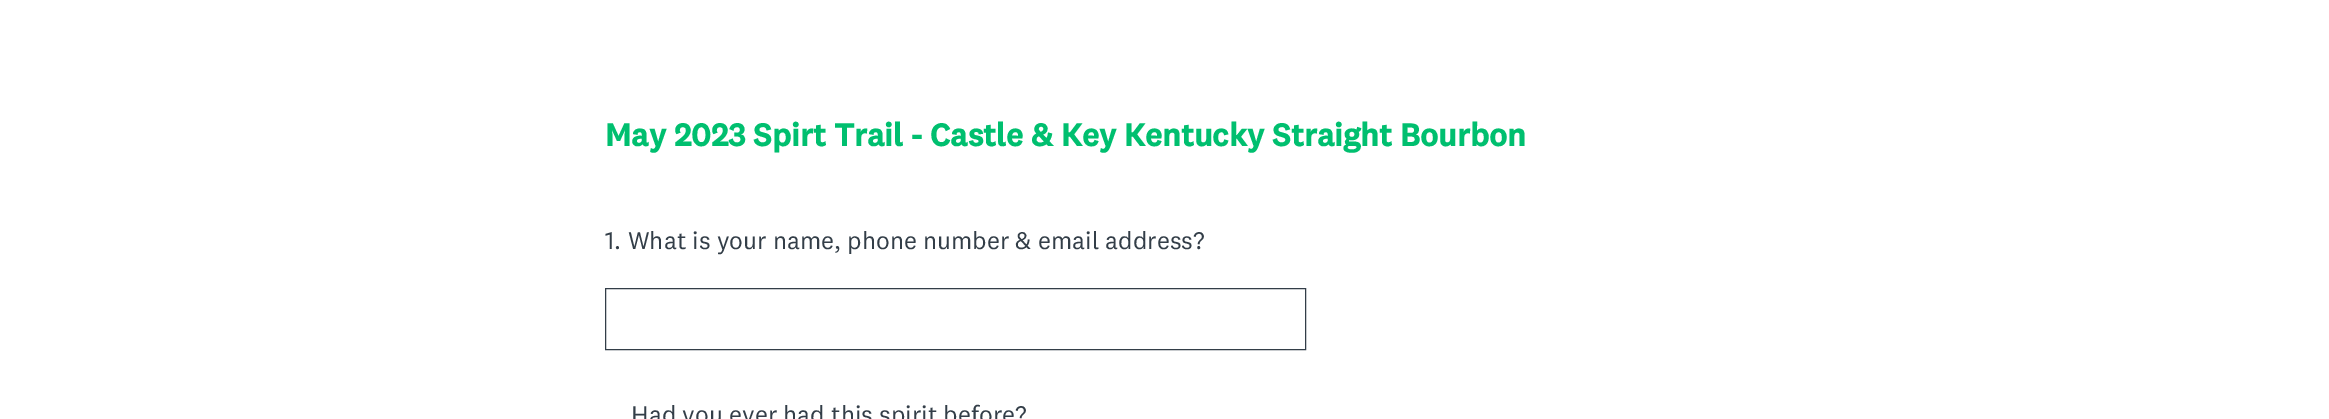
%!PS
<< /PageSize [2329 419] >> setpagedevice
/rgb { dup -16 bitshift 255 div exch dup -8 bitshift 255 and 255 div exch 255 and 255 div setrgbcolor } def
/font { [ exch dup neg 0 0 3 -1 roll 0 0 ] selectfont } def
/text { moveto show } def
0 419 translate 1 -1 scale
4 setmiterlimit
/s1 { /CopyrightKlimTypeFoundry-Bold 32.5 font 16#00BF6F rgb } def
/s2 { /CopyrightKlimTypeFoundry-Regular 25 font 16#333E48 rgb } def
16#FFFFFF rgb
0 0 2329 419 rectfill
s1
(May 2023 Spirt Trail - Castle & Key Kentucky Straight Bourbon) 605 146 text
s2
(1. What is your name, phone number & email address?) 605 249 text
605.5 288.5 700 61 rectstroke
(Had you ever had this spirit before?) 631 423 text
showpage
